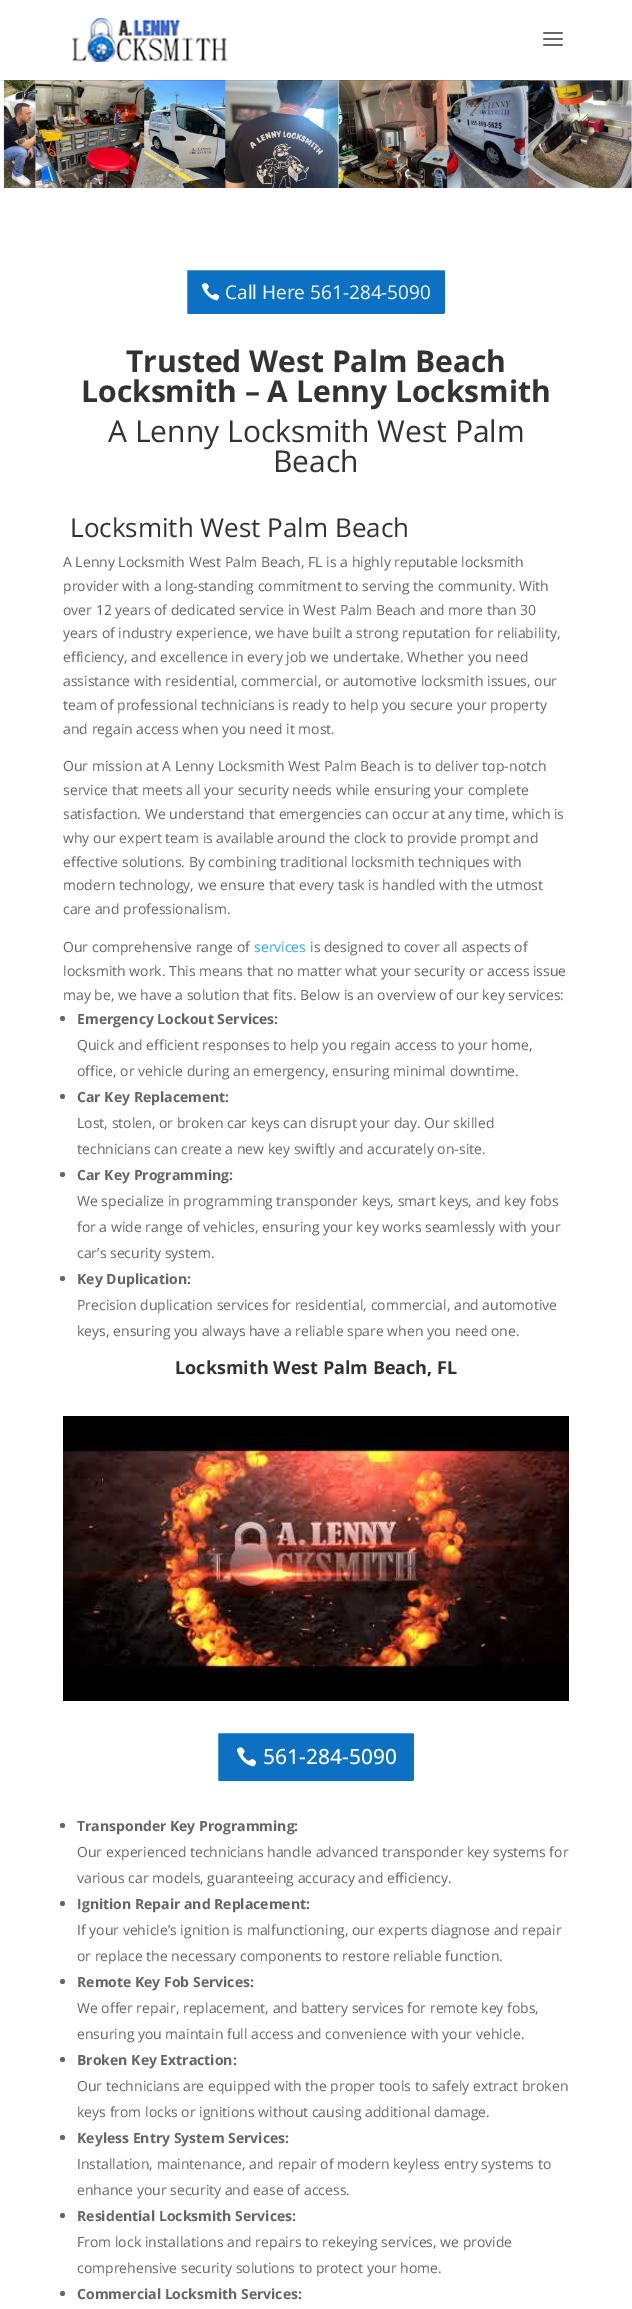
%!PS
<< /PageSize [632 2309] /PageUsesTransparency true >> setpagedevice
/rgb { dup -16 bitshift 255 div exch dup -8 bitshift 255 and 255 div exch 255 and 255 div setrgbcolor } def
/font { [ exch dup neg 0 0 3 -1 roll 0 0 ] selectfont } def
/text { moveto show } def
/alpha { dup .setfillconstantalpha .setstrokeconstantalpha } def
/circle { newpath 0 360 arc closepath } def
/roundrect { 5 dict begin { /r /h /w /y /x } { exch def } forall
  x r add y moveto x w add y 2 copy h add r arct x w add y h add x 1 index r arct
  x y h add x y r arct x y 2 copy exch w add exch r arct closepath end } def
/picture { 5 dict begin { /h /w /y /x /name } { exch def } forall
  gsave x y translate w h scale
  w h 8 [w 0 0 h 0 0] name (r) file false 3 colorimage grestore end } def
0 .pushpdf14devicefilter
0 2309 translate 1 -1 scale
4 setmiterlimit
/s1 { /OpenSans-Regular 19 font 16#FFFFFF rgb } def
/s2 { /OpenSans-Bold 30 font 16#333333 rgb } def
/s3 { /OpenSans-Regular 30 font 16#333333 rgb } def
/s4 { /OpenSans-Regular 26 font 16#333333 rgb } def
/s5 { /OpenSans-Regular 14 font 16#666666 rgb } def
/s6 { /OpenSans-Regular 14 font 16#2EA3F2 rgb } def
/s7 { /OpenSans-Bold 14 font 16#666666 rgb } def
/s8 { /OpenSans-Bold 18 font 16#333333 rgb } def
/s9 { /OpenSans-Medium 21 font 16#FFFFFF rgb } def
16#FFFFFF rgb
0 0 632 2309 rectfill
(pic3.raw) 3 80 629 108 picture
0.1 alpha
16#000000 rgb
0 80 632 1 rectfill
1 alpha
(pic1.raw) 71 18 157 44 picture
(pic2.raw) 543 32 20 14 picture
16#0C71C3 rgb
186 269 260 46 2 roundrect gsave fill grestore
16#FFFFFF rgb
2 setlinewidth
stroke
(pic4.raw) 201 283 19 18 picture
s1
(Call Here 561-284-5090) 225 299 text
s2
(Trusted West Palm Beach) 126 372 text
(Locksmith – A Lenny Locksmith) 81 402 text
s3
(A Lenny Locksmith West Palm) 108 442 text
(Beach) 273 472 text
s4
(Locksmith West Palm Beach) 70 537 text
s5
(A Lenny Locksmith West Palm Beach, FL is a highly reputable locksmith) 63 567 text
(provider with a long-standing commitment to serving the community. With) 63 591 text
(over 12 years of dedicated service in West Palm Beach and more than 30) 63 615 text
(years of industry experience, we have built a strong reputation for reliability,) 63 638 text
(efficiency, and excellence in every job we undertake. Whether you need) 63 662 text
(assistance with residential, commercial, or automotive locksmith issues, our) 63 686 text
(team of professional technicians is ready to help you secure your property) 63 710 text
(and regain access when you need it most.) 63 734 text
(Our mission at A Lenny Locksmith West Palm Beach is to deliver top-notch) 63 771 text
(service that meets all your security needs while ensuring your complete) 63 795 text
(satisfaction. We understand that emergencies can occur at any time, which is) 63 819 text
(why our expert team is available around the clock to provide prompt and) 63 843 text
(effective solutions. By combining traditional locksmith techniques with) 63 867 text
(modern technology, we ensure that every task is handled with the utmost) 63 890 text
(care and professionalism.) 63 914 text
(Our comprehensive range of) 63 952 text
s6
(services) 254 952 text
s5
(is designed to cover all aspects of) 310 952 text
(locksmith work. This means that no matter what your security or access issue) 63 976 text
(may be, we have a solution that fits. Below is an overview of our key services:) 63 1000 text
62.5 1018.5 2.5 circle fill
s7
(Emergency Lockout Services:) 77 1024 text
s5
(Quick and efficient responses to help you regain access to your home,) 77 1050 text
(office, or vehicle during an emergency, ensuring minimal downtime.) 77 1076 text
62.5 1096.5 2.5 circle fill
s7
(Car Key Replacement:) 77 1102 text
s5
(Lost, stolen, or broken car keys can disrupt your day. Our skilled) 77 1128 text
(technicians can create a new key swiftly and accurately on-site.) 77 1154 text
62.5 1174.5 2.5 circle fill
s7
(Car Key Programming:) 77 1180 text
s5
(We specialize in programming transponder keys, smart keys, and key fobs) 77 1206 text
(for a wide range of vehicles, ensuring your key works seamlessly with your) 77 1232 text
(car’s security system.) 77 1258 text
62.5 1278.5 2.5 circle fill
s7
(Key Duplication:) 77 1284 text
s5
(Precision duplication services for residential, commercial, and automotive) 77 1310 text
(keys, ensuring you always have a reliable spare when you need one.) 77 1336 text
s8
(Locksmith West Palm Beach, FL) 175 1374 text
(pic5.raw) 63 1416 506 285 picture
16#0C71C3 rgb
217 1732 198 50 2 roundrect gsave fill grestore
16#FFFFFF rgb
stroke
(pic6.raw) 236 1747 21 20 picture
s9
(561-284-5090) 263 1764 text
16#666666 rgb
62.5 1825.5 2.5 circle fill
s7
(Transponder Key Programming:) 77 1831 text
s5
(Our experienced technicians handle advanced transponder key systems for) 77 1857 text
(various car models, guaranteeing accuracy and efficiency.) 77 1883 text
62.5 1903.5 2.5 circle fill
s7
(Ignition Repair and Replacement:) 77 1909 text
s5
(If your vehicle’s ignition is malfunctioning, our experts diagnose and repair) 77 1935 text
(or replace the necessary components to restore reliable function.) 77 1961 text
62.5 1981.5 2.5 circle fill
s7
(Remote Key Fob Services:) 77 1987 text
s5
(We offer repair, replacement, and battery services for remote key fobs,) 77 2013 text
(ensuring you maintain full access and convenience with your vehicle.) 77 2039 text
62.5 2059.5 2.5 circle fill
s7
(Broken Key Extraction:) 77 2065 text
s5
(Our technicians are equipped with the proper tools to safely extract broken) 77 2091 text
(keys from locks or ignitions without causing additional damage.) 77 2117 text
62.5 2137.5 2.5 circle fill
s7
(Keyless Entry System Services:) 77 2143 text
s5
(Installation, maintenance, and repair of modern keyless entry systems to) 77 2169 text
(enhance your security and ease of access.) 77 2195 text
62.5 2215.5 2.5 circle fill
s7
(Residential Locksmith Services:) 77 2221 text
s5
(From lock installations and repairs to rekeying services, we provide) 77 2247 text
(comprehensive security solutions to protect your home.) 77 2273 text
62.5 2293.5 2.5 circle fill
s7
(Commercial Locksmith Services:) 77 2299 text
.poppdf14devicefilter showpage
